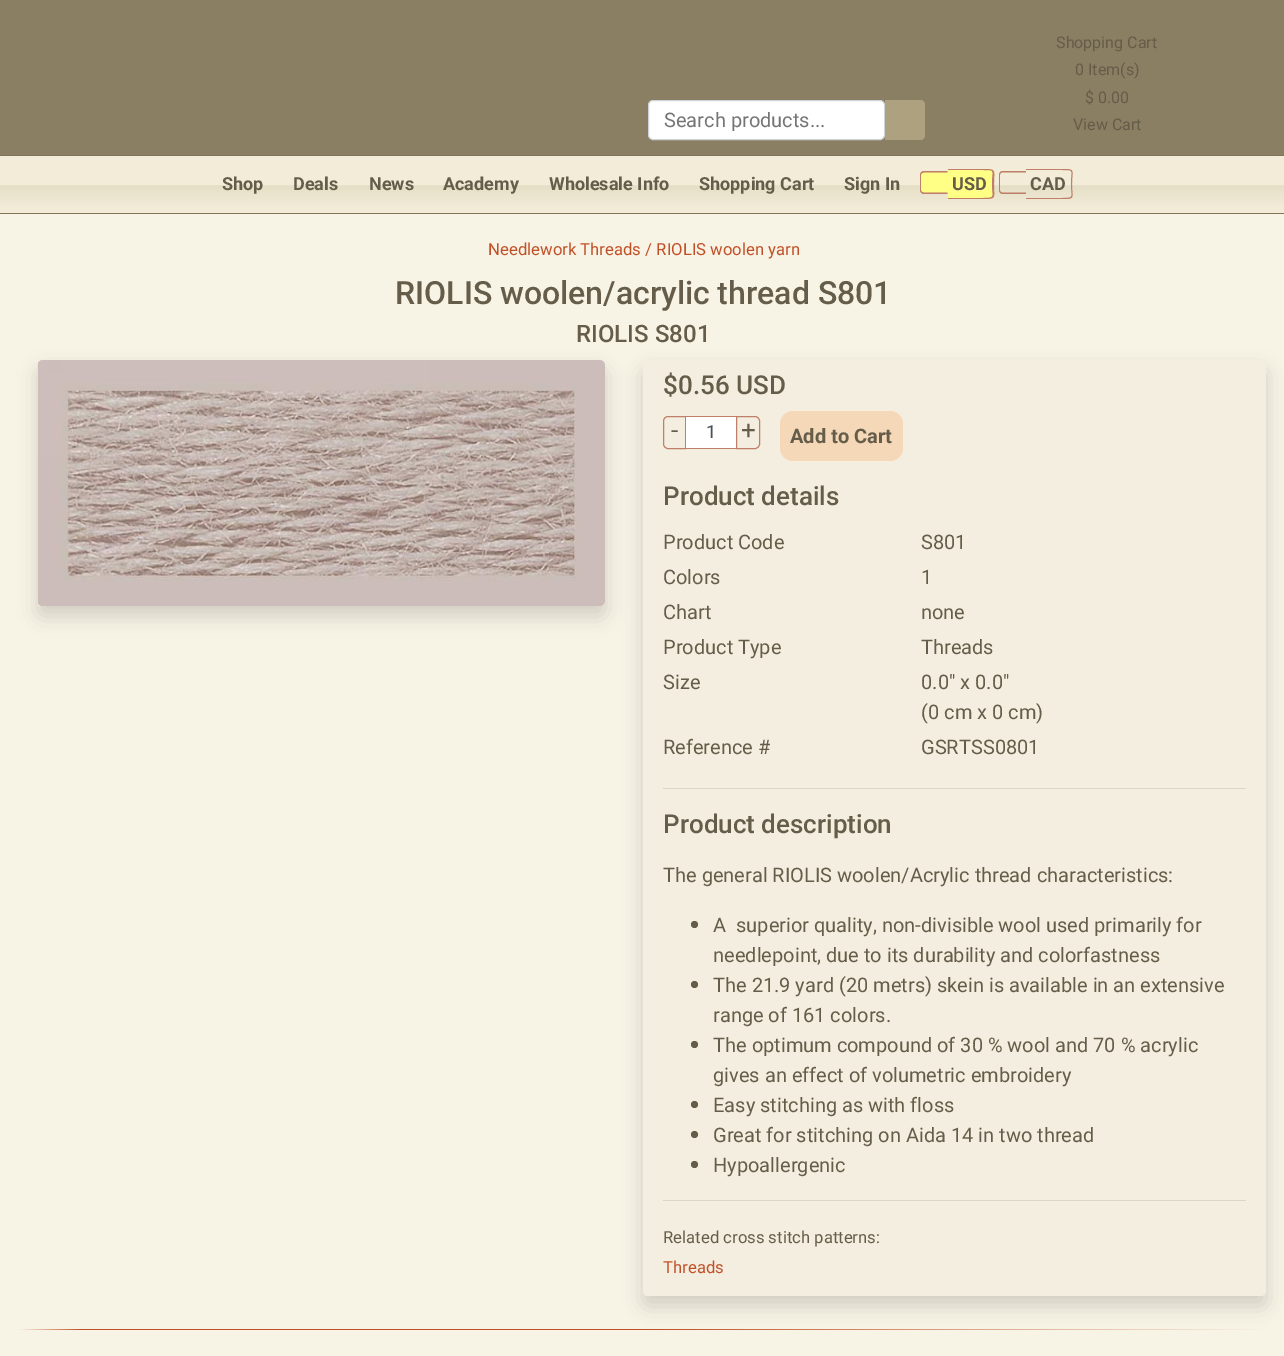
%!PS
<< /PageSize [1284 1356] /PageUsesTransparency true >> setpagedevice
/rgb { dup -16 bitshift 255 div exch dup -8 bitshift 255 and 255 div exch 255 and 255 div setrgbcolor } def
/font { [ exch dup neg 0 0 3 -1 roll 0 0 ] selectfont } def
/text { moveto show } def
/alpha { dup .setfillconstantalpha .setstrokeconstantalpha } def
/circle { newpath 0 360 arc closepath } def
/roundrect { 5 dict begin { /r /h /w /y /x } { exch def } forall
  x r add y moveto x w add y 2 copy h add r arct x w add y h add x 1 index r arct
  x y h add x y r arct x y 2 copy exch w add exch r arct closepath end } def
/shadow { 12 dict begin { /a /b /q /h /w /y /x } { exch def } forall gsave /was 0 def
  9 -2 -9 { dup b mul 4 div /e exch def 1 sub .425 mul 2.718 exch exp 1 add a .99 .min exch div /now exch def
    1 1 now sub 1 was sub div sub alpha /was now def
    w h .min e 2 mul add 0 gt { x e sub y e sub w e 2 mul add h e 2 mul add
      q e add b .6 mul add w h .min 2 div e add .min 0 .max roundrect fill } if } for grestore end } def
/picture { 5 dict begin { /h /w /y /x /name } { exch def } forall
  gsave x y translate w h scale
  w h 8 [w 0 0 h 0 0] name (r) file false 3 colorimage grestore end } def
0 .pushpdf14devicefilter
0 1356 translate 1 -1 scale
4 setmiterlimit
/s1 { /Roboto-Regular 20 font 16#757575 rgb } def
/s2 { /Roboto-Regular 16 font 16#655D49 rgb } def
/s3 { /Roboto-Bold 18 font 16#655D49 rgb } def
/s4 { /Roboto-Regular 16.7 font 16#C14F27 rgb } def
/s5 { /Roboto-Medium 32 font 16#655D49 rgb } def
/s6 { /Roboto-Medium 24 font 16#655D49 rgb } def
/s7 { /Roboto-Medium 26 font 16#655D49 rgb } def
/s8 { /Roboto-Regular 26 font 16#655D49 rgb } def
/s9 { /Roboto-Regular 18 font 16#495057 rgb } def
/s10 { /Roboto-Bold 20 font 16#655D49 rgb } def
/s11 { /Roboto-Regular 20 font 16#655D49 rgb } def
/s12 { /Roboto-Regular 16.7 font 16#655D49 rgb } def
16#F7F3E5 rgb
0 0 1284 1356 rectfill
16#8A7E63 rgb
0 0 1284 155 rectfill
16#7F7358 rgb
0 155 1284 1 rectfill
16#FFFFFF rgb
648.5 100.5 236 39 4.5 roundrect gsave fill grestore
16#CED4DA rgb
stroke
s1
(Search products...) 664 127 text
16#ADA180 rgb
885 100 moveto 920 100 lineto 923 100 925 102 925 105 curveto 925 135 lineto 925 138 923 140 920 140 curveto 885 140 lineto closepath fill
s2
(Shopping Cart) 1056 48 text
(0 Item\(s\)) 1075 75 text
($ 0.00) 1085 103 text
(View Cart) 1073 130 text
gsave 0 156 moveto 1284 156 lineto 1284 213 lineto 0 213 lineto closepath clip newpath
<< /ShadingType 2 /ColorSpace /DeviceRGB /Coords [643 156 643 213] /Extend [true true] /Function << /FunctionType 3 /Domain [0 1] /Functions [<< /FunctionType 2 /Domain [0 1] /C0 [0.953 0.925 0.851] /C1 [0.953 0.925 0.851] /N 1 >> << /FunctionType 2 /Domain [0 1] /C0 [0.953 0.925 0.851] /C1 [0.902 0.875 0.78] /N 1 >> << /FunctionType 2 /Domain [0 1] /C0 [0.902 0.875 0.78] /C1 [0.949 0.922 0.847] /N 1 >> << /FunctionType 2 /Domain [0 1] /C0 [0.949 0.922 0.847] /C1 [0.949 0.922 0.847] /N 1 >>] /Bounds [0.5 0.52 0.89] /Encode [0 1 0 1 0 1 0 1] >> >> shfill grestore
16#7F7358 rgb
0 213 1284 1 rectfill
s3
(Shop) 222 190 text
(Deals) 293 190 text
(News) 369 190 text
(Academy) 443 190 text
(Wholesale Info) 549 190 text
(Shopping Cart) 699 190 text
(Sign In) 844 190 text
16#FFFF86 rgb
948 169 moveto 990 169 lineto 992 169 994 171 994 173 curveto 994 195 lineto 994 197 992 199 990 199 curveto 948 199 lineto closepath fill
16#BF7F68 rgb
948 169 moveto 983 169 lineto 997 169 994 170 994 184 curveto 994 198 997 199 983 199 curveto 948 199 lineto closepath 948 170 moveto 983 170 lineto 996 170 992 170 992 184 curveto 992 197 996 198 983 198 curveto 948 198 lineto closepath eofill
s3
(USD) 952 190 text
16#FFFF86 rgb
924 171 moveto 948 171 lineto 948 194 lineto 924 194 lineto 922 194 920 192 920 190 curveto 920 175 lineto 920 173 922 171 924 171 curveto closepath fill
16#BF7F68 rgb
924 171 moveto 947.5 171 lineto 947.5 194 lineto 924 194 lineto 921.5 194 920 192 920 190 curveto 920 175 lineto 920 173 921.5 171 924 171 curveto closepath 924 172.5 moveto 947.5 172.5 lineto 947.5 192.5 lineto 924 192.5 lineto 922.5 192.5 921 191.5 921 190 curveto 921 175 lineto 921 173.5 922.5 172.5 924 172.5 curveto closepath eofill
1026 169 moveto 1062 169 lineto 1076 169 1072 170 1072 184 curveto 1072 198 1076 199 1062 199 curveto 1026 199 lineto closepath 1026 170 moveto 1062 170 lineto 1075 170 1071 170 1071 184 curveto 1071 197 1075 198 1062 198 curveto 1026 198 lineto closepath eofill
s3
(CAD) 1030 190 text
16#BF7F68 rgb
1002.5 171 moveto 1026 171 lineto 1026 194 lineto 1002.5 194 lineto 1000.5 194 999 192 999 190 curveto 999 175 lineto 999 173 1000.5 171 1002.5 171 curveto closepath 1002.5 172.5 moveto 1026 172.5 lineto 1026 192.5 lineto 1002.5 192.5 lineto 1001 192.5 1000 191.5 1000 190 curveto 1000 175 lineto 1000 173.5 1001 172.5 1002.5 172.5 curveto closepath eofill
s4
(Needlework Threads / RIOLIS woolen yarn) 488 255 text
s5
(RIOLIS woolen/acrylic thread S801) 395 304 text
s6
(RIOLIS S801) 576 342 text
16#000000 rgb
38 370 567 246 5 10 0.15 shadow
(pic1.raw) 37 360 568 246 picture
643 370 623 936 5 10 0.15 shadow
16#F4EEE0 rgb
643 360 623 936 5 roundrect fill
s7
($0.56 USD) 663 394 text
16#BF7F68 rgb
668 416.5 moveto 685.5 416.5 lineto 685.5 448.5 lineto 668 448.5 lineto 665.5 448.5 663.5 446.5 663.5 444 curveto 663.5 421 lineto 663.5 418.5 665.5 416.5 668 416.5 curveto closepath stroke
s8
(-) 671 439 text
16#FFFFFF rgb
686 417 50 31 rectfill
16#BF7F68 rgb
686 416 50 1 rectfill
686 448 50 1 rectfill
s9
(1) 706 438 text
16#BF7F68 rgb
736.5 416.5 moveto 755 416.5 lineto 757.5 416.5 759.5 418.5 759.5 421 curveto 759.5 444 lineto 759.5 446.5 757.5 448.5 755 448.5 curveto 736.5 448.5 lineto closepath stroke
s8
(+) 741 439 text
16#F5D8B8 rgb
780 411 123 50 13 roundrect fill
s10
(Add to Cart) 790 443 text
s7
(Product details) 663 505 text
s11
(Product Code) 663 549 text
(S801) 921 549 text
(Colors) 663 584 text
(1) 921 584 text
(Chart) 663 619 text
(none) 921 619 text
(Product Type) 663 654 text
(Threads) 921 654 text
(Size) 663 689 text
(0.0" x 0.0") 921 689 text
(\(0 cm x 0 cm\)) 921 719 text
(Reference #) 663 754 text
(GSRTSS0801) 921 754 text
16#DCD6CA rgb
663 788 583 1 rectfill
s7
(Product description) 663 833 text
s11
(The general RIOLIS woolen/Acrylic thread characteristics:) 663 882 text
694.5 924.5 3.5 circle fill
(A  superior quality, non-divisible wool used primarily for) 713 932 text
(needlepoint, due to its durability and colorfastness) 713 962 text
694.5 984.5 3.5 circle fill
(The 21.9 yard \(20 metrs\) skein is available in an extensive) 713 992 text
(range of 161 colors.) 713 1022 text
694.5 1044.5 3.5 circle fill
(The optimum compound of 30 % wool and 70 % acrylic) 713 1052 text
(gives an effect of volumetric embroidery) 713 1082 text
694.5 1104.5 3.5 circle fill
(Easy stitching as with floss) 713 1112 text
694.5 1134.5 3.5 circle fill
(Great for stitching on Aida 14 in two thread) 713 1142 text
694.5 1164.5 3.5 circle fill
(Hypoallergenic) 713 1172 text
16#DCD6CA rgb
663 1200 583 1 rectfill
s12
(Related cross stitch patterns:) 663 1243 text
s4
(Threads) 663 1273 text
gsave 19 1329 moveto 1266 1329 lineto 1266 1330 lineto 19 1330 lineto closepath clip newpath
<< /ShadingType 2 /ColorSpace /DeviceRGB /Coords [19 1329 1266 1329] /Extend [true true] /Function << /FunctionType 3 /Domain [0 1] /Functions [<< /FunctionType 2 /Domain [0 1] /C0 [0.969 0.953 0.898] /C1 [0.757 0.31 0.153] /N 1 >> << /FunctionType 2 /Domain [0 1] /C0 [0.757 0.31 0.153] /C1 [0.757 0.31 0.153] /N 1 >> << /FunctionType 2 /Domain [0 1] /C0 [0.757 0.31 0.153] /C1 [0.969 0.953 0.898] /N 1 >>] /Bounds [0.05 0.5] /Encode [0 1 0 1 0 1] >> >> shfill grestore
.poppdf14devicefilter showpage
